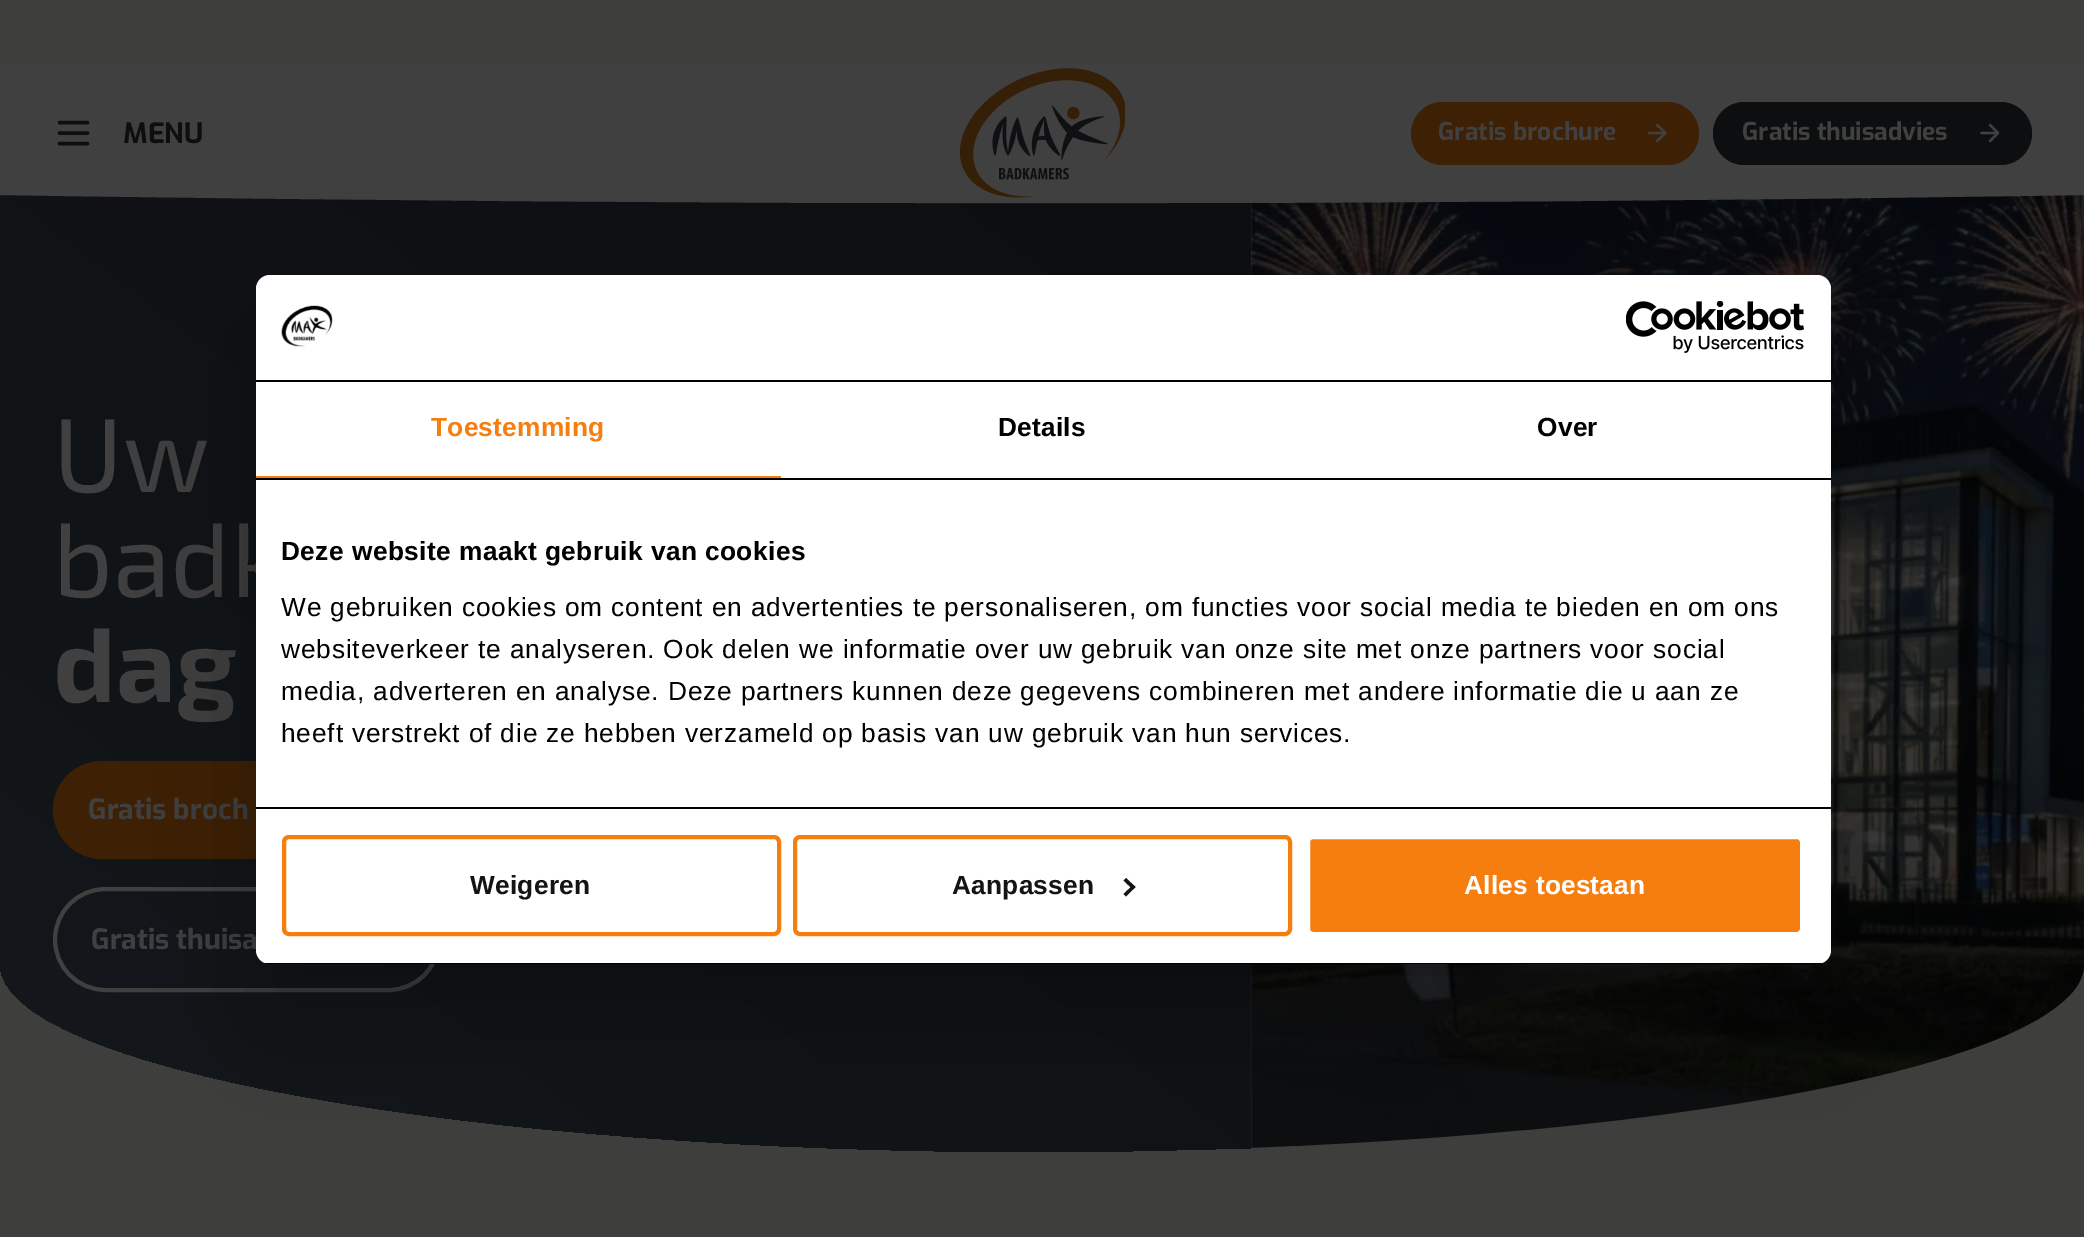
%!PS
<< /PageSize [2084 1237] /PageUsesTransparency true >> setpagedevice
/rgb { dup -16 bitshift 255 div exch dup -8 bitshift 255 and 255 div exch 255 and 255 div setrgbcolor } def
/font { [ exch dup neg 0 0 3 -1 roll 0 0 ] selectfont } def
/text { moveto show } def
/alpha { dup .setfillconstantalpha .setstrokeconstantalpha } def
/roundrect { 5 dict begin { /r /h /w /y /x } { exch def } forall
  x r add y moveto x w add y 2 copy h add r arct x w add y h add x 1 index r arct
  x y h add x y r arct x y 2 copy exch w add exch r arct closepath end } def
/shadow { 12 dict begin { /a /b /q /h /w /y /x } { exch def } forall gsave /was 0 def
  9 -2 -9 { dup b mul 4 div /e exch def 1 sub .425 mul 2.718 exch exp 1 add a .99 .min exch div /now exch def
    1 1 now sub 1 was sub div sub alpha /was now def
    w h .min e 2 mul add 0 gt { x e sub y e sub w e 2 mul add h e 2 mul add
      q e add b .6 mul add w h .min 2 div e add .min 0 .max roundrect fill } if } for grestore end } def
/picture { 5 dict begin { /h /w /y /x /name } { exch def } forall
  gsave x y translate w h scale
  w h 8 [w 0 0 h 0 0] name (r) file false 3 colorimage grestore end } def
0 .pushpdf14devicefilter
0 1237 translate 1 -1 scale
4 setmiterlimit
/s1 { /Exo-Bold 28 font 16#0C0E10 rgb } def
/s2 { /Exo-Bold 24.5 font 16#404040 rgb } def
/s3 { /Exo2-Regular 105 font 16#404040 rgb } def
/s4 { /Exo2-Bold 105 font 16#404040 rgb } def
/s5 { /Exo-Bold 28 font 16#404040 rgb } def
16#3E3E3D rgb
0 0 2084 1237 rectfill
gsave 0 189 moveto 0 964 lineto 0 1068 467 1152 1042 1152 curveto 1114 1152 1184 1150 1251 1148 curveto 1251 189 lineto closepath clip newpath
<< /ShadingType 2 /ColorSpace /DeviceRGB /Coords [160 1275 1091 66] /Extend [true true] /Function << /FunctionType 2 /Domain [0 1] /C0 [0.078 0.09 0.106] /C1 [0.047 0.055 0.063] /N 1 >> >> shfill grestore
(pic2.raw) 1251 195 833 953 picture
16#404040 rgb
0 63 moveto 2084 63 lineto 2084 195 lineto 1389 206 695 206 0 195 curveto closepath fill
16#0C0E10 rgb
3.5 setlinewidth
1 setlinecap
1 setlinejoin
59.5 133 moveto 87.5 133 lineto 59.5 122.5 moveto 87.5 122.5 lineto 59.5 143.5 moveto 87.5 143.5 lineto stroke
s1
(MENU) 123 143 text
(pic1.raw) 959 68 166 130 picture
16#3E2004 rgb
1411 102 288 63 31.5 roundrect fill
s2
(Gratis brochure) 1438 140 text
2.3 setlinewidth
1649 133 moveto 1665.5 133 lineto 1657 125 moveto 1665.5 133 lineto 1657 141 lineto stroke
16#0C0E10 rgb
1713 102 319 63 31.5 roundrect fill
s2
(Gratis thuisadvies) 1742 140 text
1981.5 133 moveto 1998 133 lineto 1990 125 moveto 1998 133 lineto 1990 141 lineto stroke
s3
(Uw) 53 492 text
(badk) 53 597 text
s4
(dag) 53 702 text
16#3E2004 rgb
53 761 497 98 49 roundrect fill
s5
(Gratis broch) 88 819 text
4 setlinewidth
0 setlinecap
0 setlinejoin
55 889 384 101 50.5 roundrect stroke
(Gratis thuisa) 91 949 text
16#000000 rgb
256 331 1575 689 14 59.5 0.3 shadow
16#FFFFFF rgb
256 275 1575 689 14 roundrect fill
16#000000 rgb
256 380 1575 2 rectfill
(pic3.raw) 281 305 52 42 picture
(pic4.raw) 1626 301 178 52 picture
256 478 1575 2 rectfill
16#F67E0F rgb
256 476 525 2 rectfill
/LiberationSans-Bold 26.25 font
431 436 moveto 0.25 0 (Toestemming) ashow
16#000000 rgb
998 436 moveto 0.25 0 (Details) ashow
1537 436 moveto 0.25 0 (Over) ashow
256 807 1575 2 rectfill
281 560 moveto 0.45 0 (Deze website maakt gebruik van cookies) ashow
/LiberationSans-Regular 26.25 font
281 616 moveto 0.88 0 (We gebruiken cookies om content en advertenties te personaliseren, om functies voor social media te bieden en om ons) ashow
281 658 moveto 0.88 0 (websiteverkeer te analyseren. Ook delen we informatie over uw gebruik van onze site met onze partners voor social) ashow
281 700 moveto 0.88 0 (media, adverteren en analyse. Deze partners kunnen deze gegevens combineren met andere informatie die u aan ze) ashow
281 742 moveto 0.88 0 (heeft verstrekt of die ze hebben verzameld op basis van uw gebruik van hun services.) ashow
gsave
256 275 1575 689 14 roundrect clip newpath
265 963 1557 1 rectfill
grestore
16#F67E0F rgb
284 837 495 97 5 roundrect stroke
/LiberationSans-Bold 26.25 font
16#141414 rgb
470 894 moveto 0.25 0 (Weigeren) ashow
16#F67E0F rgb
795 837 495 97 5 roundrect stroke
16#141414 rgb
952 894 moveto 0.25 0 (Aanpassen) ashow
1126 878 moveto 1135.5 887 lineto 1133 889.5 lineto 1123.5 880.5 lineto closepath fill
1133 885 moveto 1135.5 887 lineto 1126 896.5 lineto 1123.5 894 lineto closepath fill
16#F67E0F rgb
1308 837 494 97 5 roundrect gsave fill grestore
16#FFFFFF rgb
stroke
1464 894 moveto 0.25 0 (Alles toestaan) ashow
.poppdf14devicefilter showpage
